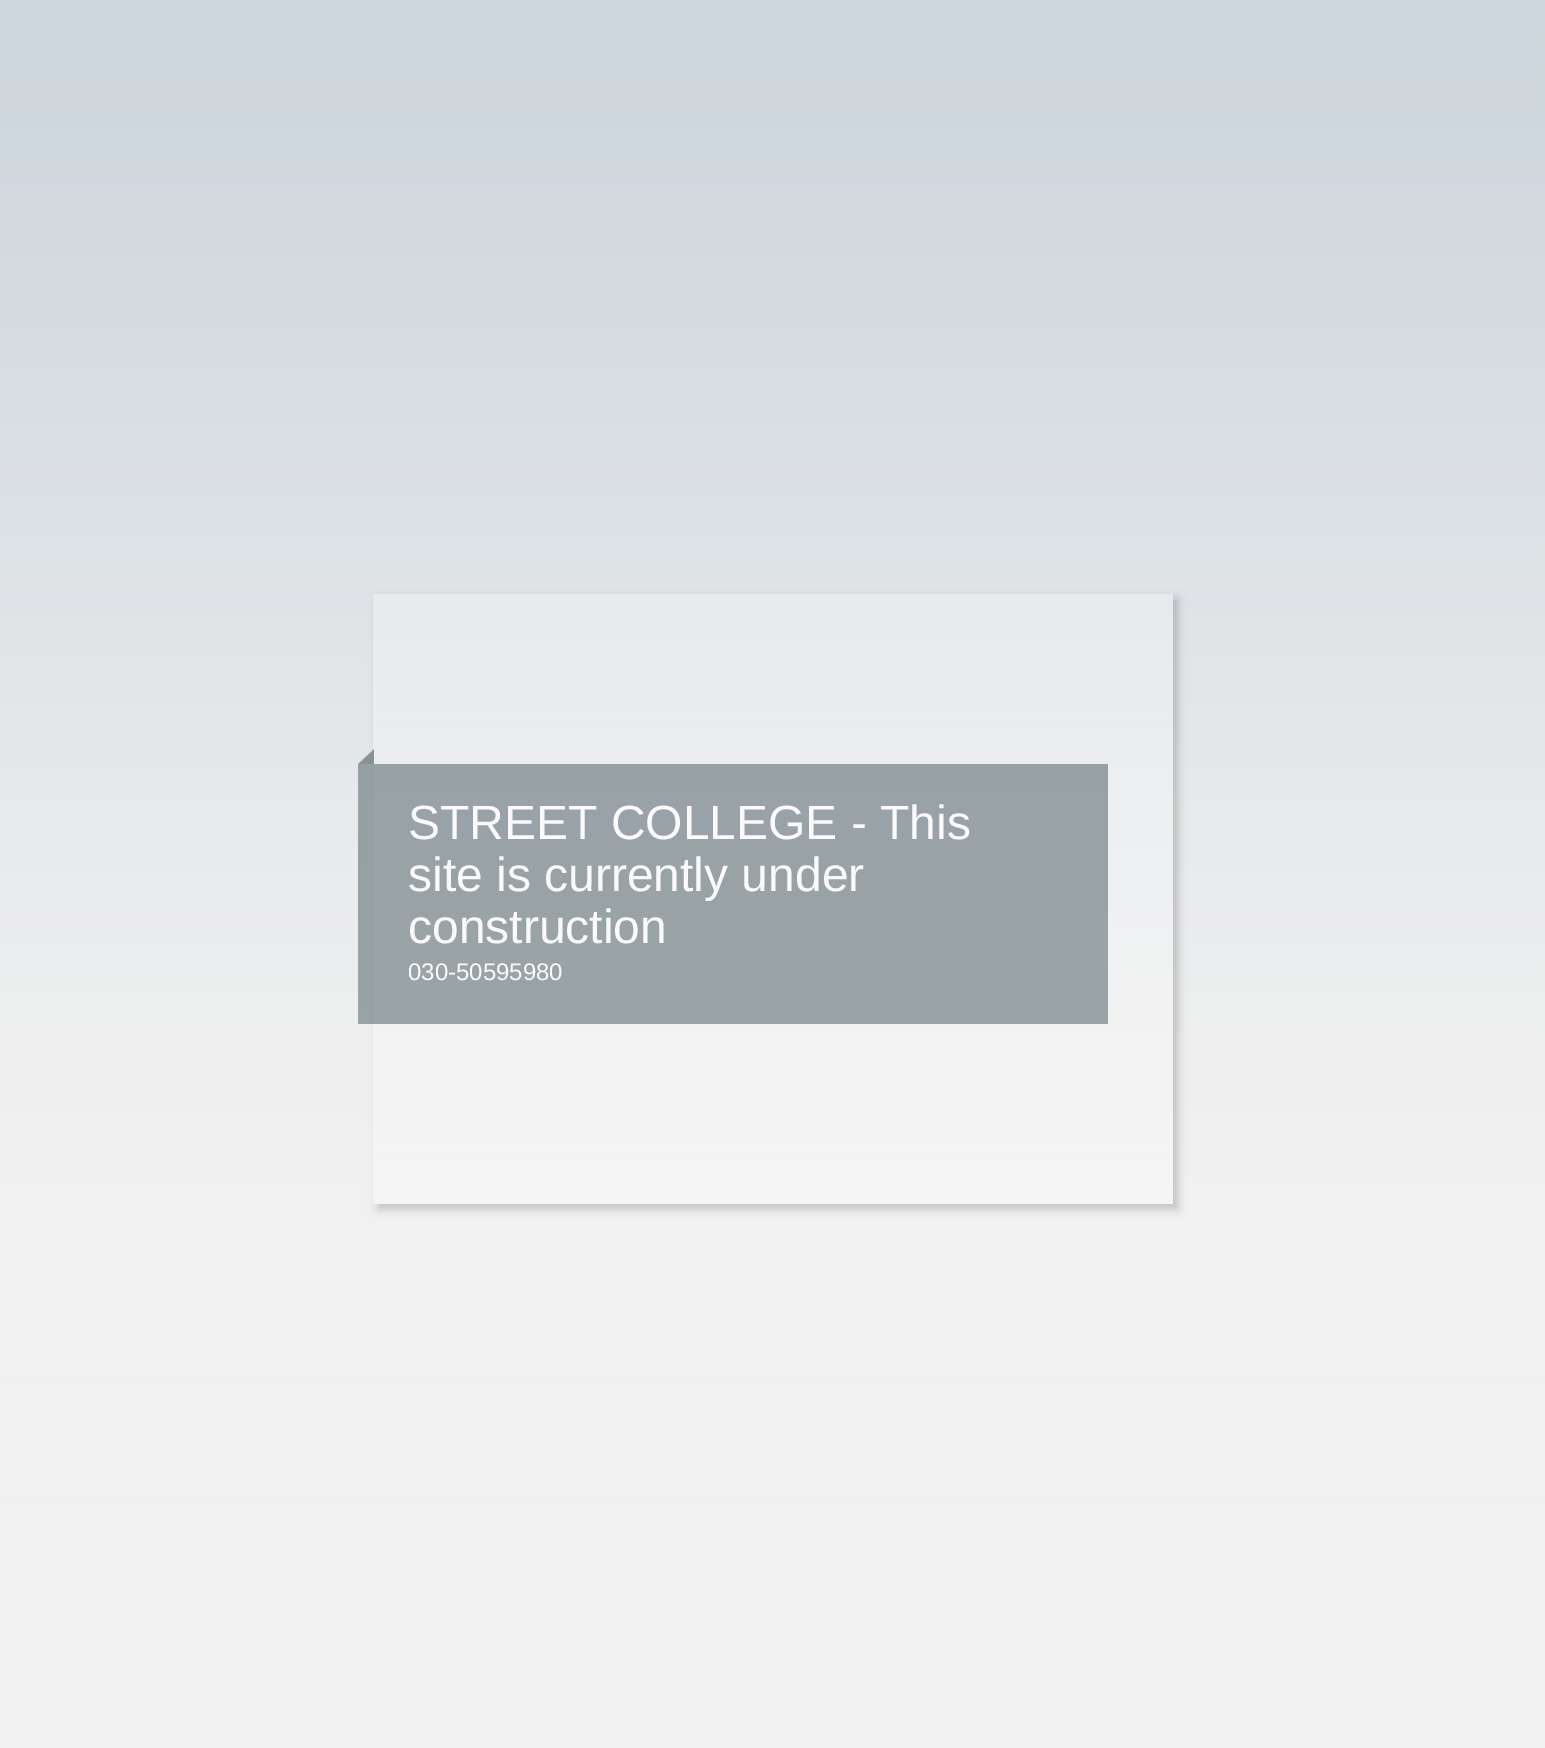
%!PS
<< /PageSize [1545 1748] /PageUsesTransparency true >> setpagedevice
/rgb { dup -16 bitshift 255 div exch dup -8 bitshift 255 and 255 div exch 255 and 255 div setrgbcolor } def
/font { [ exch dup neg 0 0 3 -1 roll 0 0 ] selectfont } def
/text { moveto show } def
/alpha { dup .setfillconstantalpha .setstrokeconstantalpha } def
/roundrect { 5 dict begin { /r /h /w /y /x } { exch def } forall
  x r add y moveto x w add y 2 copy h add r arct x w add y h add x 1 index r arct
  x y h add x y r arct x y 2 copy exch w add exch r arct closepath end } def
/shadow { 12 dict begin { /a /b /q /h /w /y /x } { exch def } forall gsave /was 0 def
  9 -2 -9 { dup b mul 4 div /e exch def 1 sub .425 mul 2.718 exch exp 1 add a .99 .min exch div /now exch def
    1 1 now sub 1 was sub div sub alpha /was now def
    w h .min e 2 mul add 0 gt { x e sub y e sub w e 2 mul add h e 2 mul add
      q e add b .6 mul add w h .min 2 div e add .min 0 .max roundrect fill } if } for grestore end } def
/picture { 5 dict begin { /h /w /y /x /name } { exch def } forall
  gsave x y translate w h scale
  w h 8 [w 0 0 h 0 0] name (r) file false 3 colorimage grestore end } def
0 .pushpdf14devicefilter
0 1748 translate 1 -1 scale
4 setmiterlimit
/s1 { /LiberationSans-Regular 48 font 16#FAFAFB rgb } def
/s2 { /LiberationSans-Regular 24 font 16#FAFAFB rgb } def
16#FFFFFF rgb
0 0 1545 1748 rectfill
(pic1.raw) 0 0 1545 1748 picture
gsave
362 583 moveto 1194 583 lineto 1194 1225 lineto 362 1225 lineto closepath 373 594 moveto 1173 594 lineto 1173 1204 lineto 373 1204 lineto closepath eoclip newpath
16#323232 rgb
378 599 800 610 0 5 0.25 shadow
grestore
0.25 alpha
373 594 800 610 rectfill
0.7 alpha
16#758286 rgb
358 764 750 260 rectfill
1 alpha
(pic2.raw) 358 749 16 15 picture
s1
(STREET COLLEGE - This) 408 839 text
(site is currently under) 408 891 text
(construction) 408 943 text
s2
(030-50595980) 408 980 text
.poppdf14devicefilter showpage
